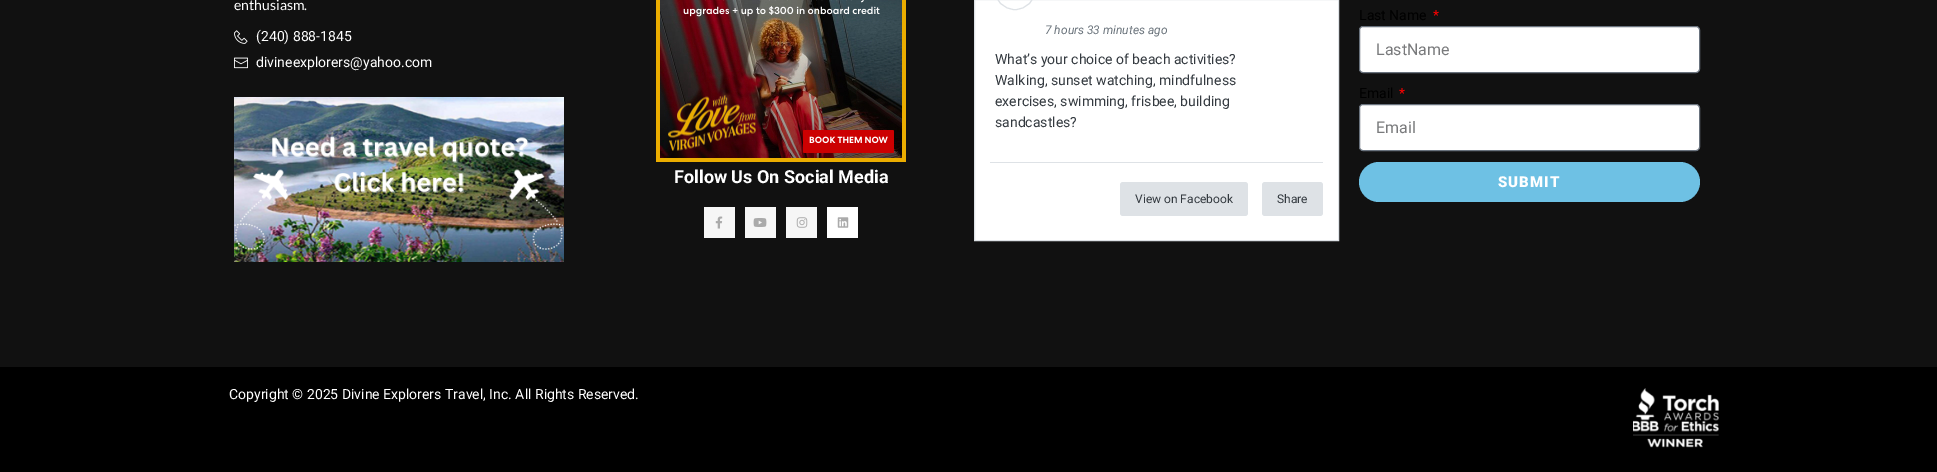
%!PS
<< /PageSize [1937 472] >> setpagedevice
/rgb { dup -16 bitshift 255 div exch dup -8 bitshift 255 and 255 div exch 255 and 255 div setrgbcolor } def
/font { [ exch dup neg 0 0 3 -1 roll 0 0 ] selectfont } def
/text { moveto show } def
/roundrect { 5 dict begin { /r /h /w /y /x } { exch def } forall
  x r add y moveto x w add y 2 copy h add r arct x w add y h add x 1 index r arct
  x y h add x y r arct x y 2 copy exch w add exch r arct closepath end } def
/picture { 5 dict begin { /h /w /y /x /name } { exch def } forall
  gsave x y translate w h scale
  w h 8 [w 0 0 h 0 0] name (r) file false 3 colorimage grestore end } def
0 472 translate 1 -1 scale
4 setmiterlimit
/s1 { /Lato-Regular 14 font 16#FFFFFF rgb } def
/s2 { /Roboto-Regular 14 font 16#FFFFFF rgb } def
/s3 { /Roboto-Bold 18 font 16#FFFFFF rgb } def
/s4 { /Roboto-Italic 12 font 16#6C757D rgb } def
/s5 { /Roboto-Regular 14 font 16#343A40 rgb } def
/s6 { /Roboto-Regular 12 font 16#343A40 rgb } def
/s7 { /Roboto-Regular 14 font 16#000000 rgb } def
/s8 { /Roboto-Regular 14 font 16#FF0000 rgb } def
/s9 { /Roboto-Regular 16 font 16#797A7C rgb } def
16#111111 rgb
0 0 1937 472 rectfill
s1
(enthusiasm.) 234 10 text
(pic1.raw) 234 30 14 14 picture
s2
(\(240\) 888-1845) 256 41 text
(pic2.raw) 234 57 14 12 picture
(divineexplorers@yahoo.com) 256 67 text
(pic3.raw) 234 97 330 165 picture
(pic4.raw) 656 0 250 162 picture
s3
(Follow Us On Social Media) 674 183 text
16#F6F6F6 rgb
704 207 31 31 rectfill
(pic5.raw) 715 216 8 13 picture
745 207 31 31 rectfill
(pic6.raw) 753 218 14 9 picture
786 207 31 31 rectfill
(pic7.raw) 796 217 12 11 picture
16#FFFFFF rgb
827 207 31 31 rectfill
(pic8.raw) 837 217 12 11 picture
974.5 -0.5 moveto 1338.5 -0.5 lineto 1338.5 240.5 lineto 974.5 240.5 lineto closepath gsave fill grestore
16#DEE2E6 rgb
stroke
994.5 -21.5 41 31 20.5 roundrect stroke
s4
(7 hours 33 minutes ago) 1045 34 text
s5
(What’s your choice of beach activities?) 995 64 text
(Walking, sunset watching, mindfulness) 995 85 text
(exercises, swimming, frisbee, building) 995 106 text
(sandcastles?) 995 127 text
16#DEE2E6 rgb
990 162 333 1 rectfill
1120 182 128 34 3 roundrect fill
s6
(View on Facebook) 1135 203 text
16#DEE2E6 rgb
1262 182 61 34 3 roundrect fill
s6
(Share) 1277 203 text
s7
(Last Name) 1359 20 text
s8
(*) 1433 20 text
16#FFFFFF rgb
1359.5 26.5 340 46 3.5 roundrect gsave fill grestore
16#69727D rgb
stroke
s9
(LastName) 1376 55 text
s7
(Email) 1359 98 text
s8
(*) 1399 98 text
16#FFFFFF rgb
1359.5 104.5 340 46 3.5 roundrect gsave fill grestore
16#69727D rgb
stroke
s9
(Email) 1376 133 text
16#6EC1E4 rgb
1359 162 341 40 20 roundrect fill
/Roboto-Black 15 font
16#FFFFFF rgb
1498 187 moveto 1 0 (SUBMIT) ashow
16#000000 rgb
0 367 1937 105 rectfill
s2
(Copyright © 2025 Divine Explorers Travel, Inc. All Rights Reserved.) 229 399 text
(pic9.raw) 1633 388 86 60 picture
showpage
